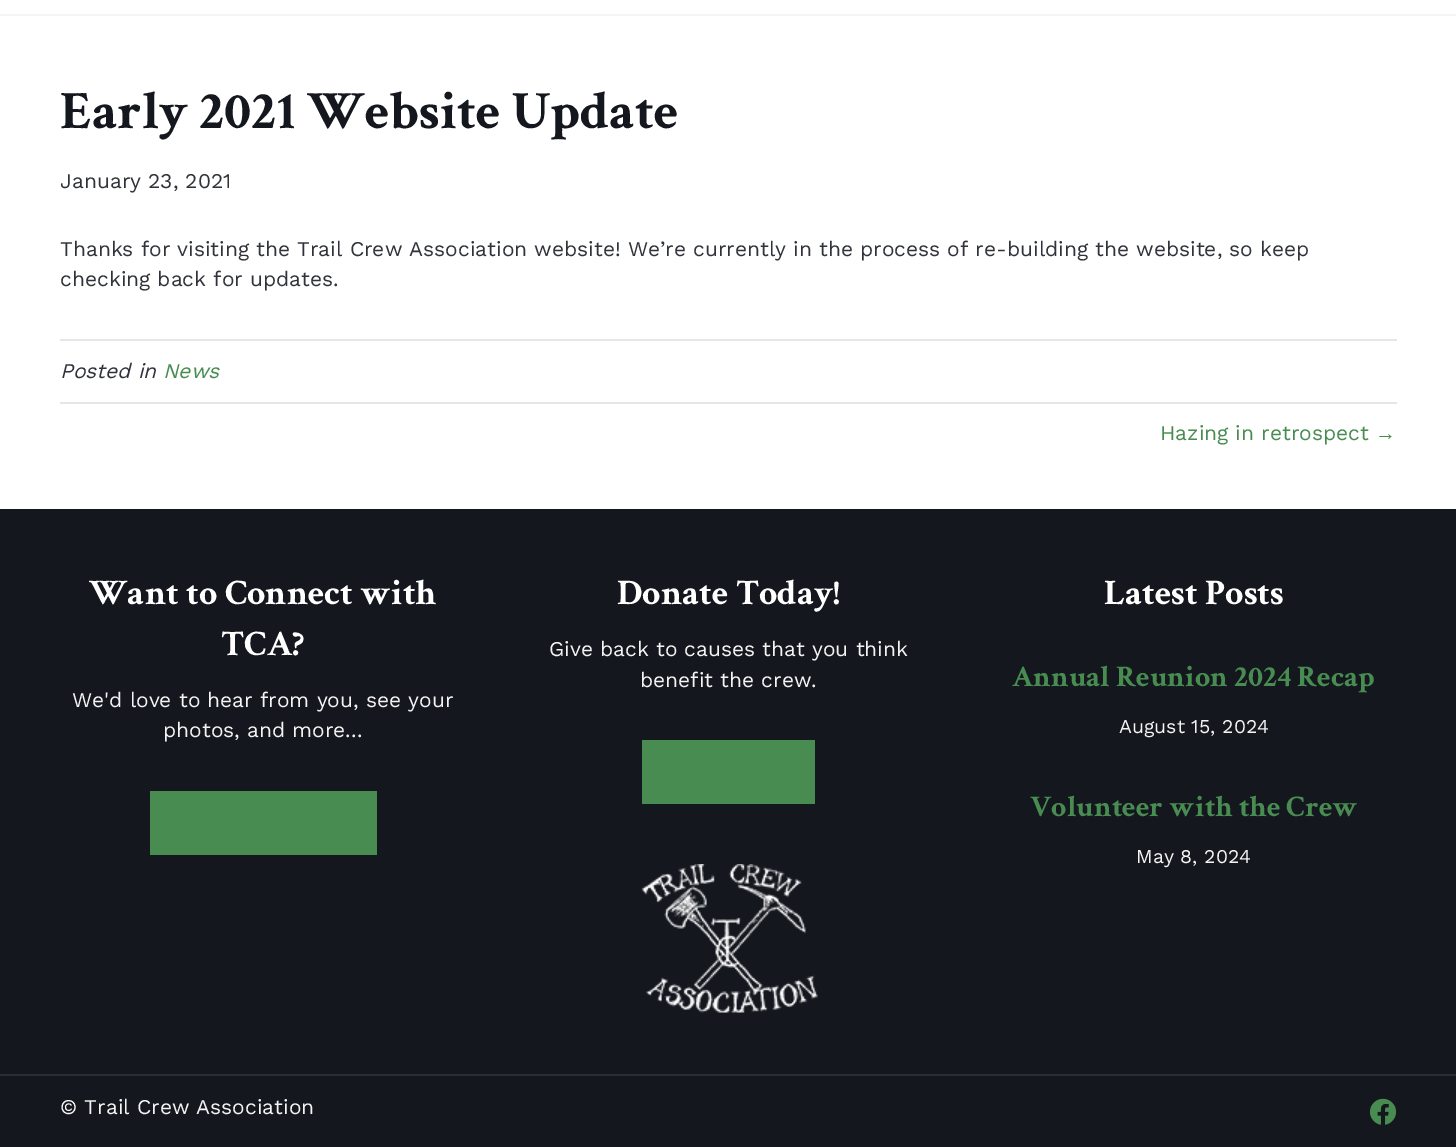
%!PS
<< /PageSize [1456 1147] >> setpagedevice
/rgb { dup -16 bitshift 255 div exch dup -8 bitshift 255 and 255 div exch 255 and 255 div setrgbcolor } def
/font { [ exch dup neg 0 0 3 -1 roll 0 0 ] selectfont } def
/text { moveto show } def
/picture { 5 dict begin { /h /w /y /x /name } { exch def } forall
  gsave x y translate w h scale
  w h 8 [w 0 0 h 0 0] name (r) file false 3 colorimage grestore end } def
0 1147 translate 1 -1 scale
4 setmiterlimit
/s1 { /CrimsonText-Bold 54 font 16#14171E rgb } def
/s2 { /WorkSans-Regular 21 font 16#30333A rgb } def
/s3 { /WorkSans-Italic 21 font 16#30333A rgb } def
/s4 { /WorkSans-Italic 21 font 16#488C51 rgb } def
/s5 { /WorkSans-Regular 21 font 16#488C51 rgb } def
/s6 { /LiberationSans-Regular 21 font 16#488C51 rgb } def
/s7 { /CrimsonText-Bold 36 font 16#FFFFFF rgb } def
/s8 { /WorkSans-Regular 21 font 16#F4F4F4 rgb } def
/s9 { /CrimsonText-Bold 30 font 16#488C51 rgb } def
/s10 { /WorkSans-Regular 19.5 font 16#F4F4F4 rgb } def
16#FFFFFF rgb
0 0 1456 1147 rectfill
16#F4F4F4 rgb
0 14 1456 2 rectfill
s1
(Early 2021 Website Update) 60 128 text
s2
(January 23, 2021) 60 188 text
(Thanks for visiting the Trail Crew Association website! We’re currently in the process of re-building the website, so keep) 60 256 text
(checking back for updates.) 60 286 text
16#E6E6E6 rgb
60 339 1337 2 rectfill
s3
(Posted in) 60 378 text
s4
(News) 163 378 text
16#E6E6E6 rgb
60 402 1337 2 rectfill
s5
(Hazing in retrospect) 1160 440 text
s6
(→) 1375 440 text
16#14171E rgb
0 509 1456 565 rectfill
s7
(Want to Connect with) 89 604 text
(TCA?) 221 655 text
s8
(We'd love to hear from you, see your) 72 707 text
(photos, and more...) 163 737 text
16#488C51 rgb
150 791 227 64 rectfill
s7
(Donate Today!) 617 604 text
s8
(Give back to causes that you think) 549 656 text
(benefit the crew.) 640 687 text
16#488C51 rgb
642 740 173 64 rectfill
(pic1.raw) 641 864 177 149 picture
s7
(Latest Posts) 1104 604 text
s9
(Annual Reunion 2024 Recap) 1012 686 text
s10
(August 15, 2024) 1119 733 text
s9
(Volunteer with the Crew) 1030 816 text
s10
(May 8, 2024) 1136 863 text
16#14171E rgb
0 1076 1456 71 rectfill
16#2A2D33 rgb
0 1074 1456 2 rectfill
s8
(© Trail Crew Association) 60 1114 text
(pic2.raw) 1369 1098 28 27 picture
showpage
